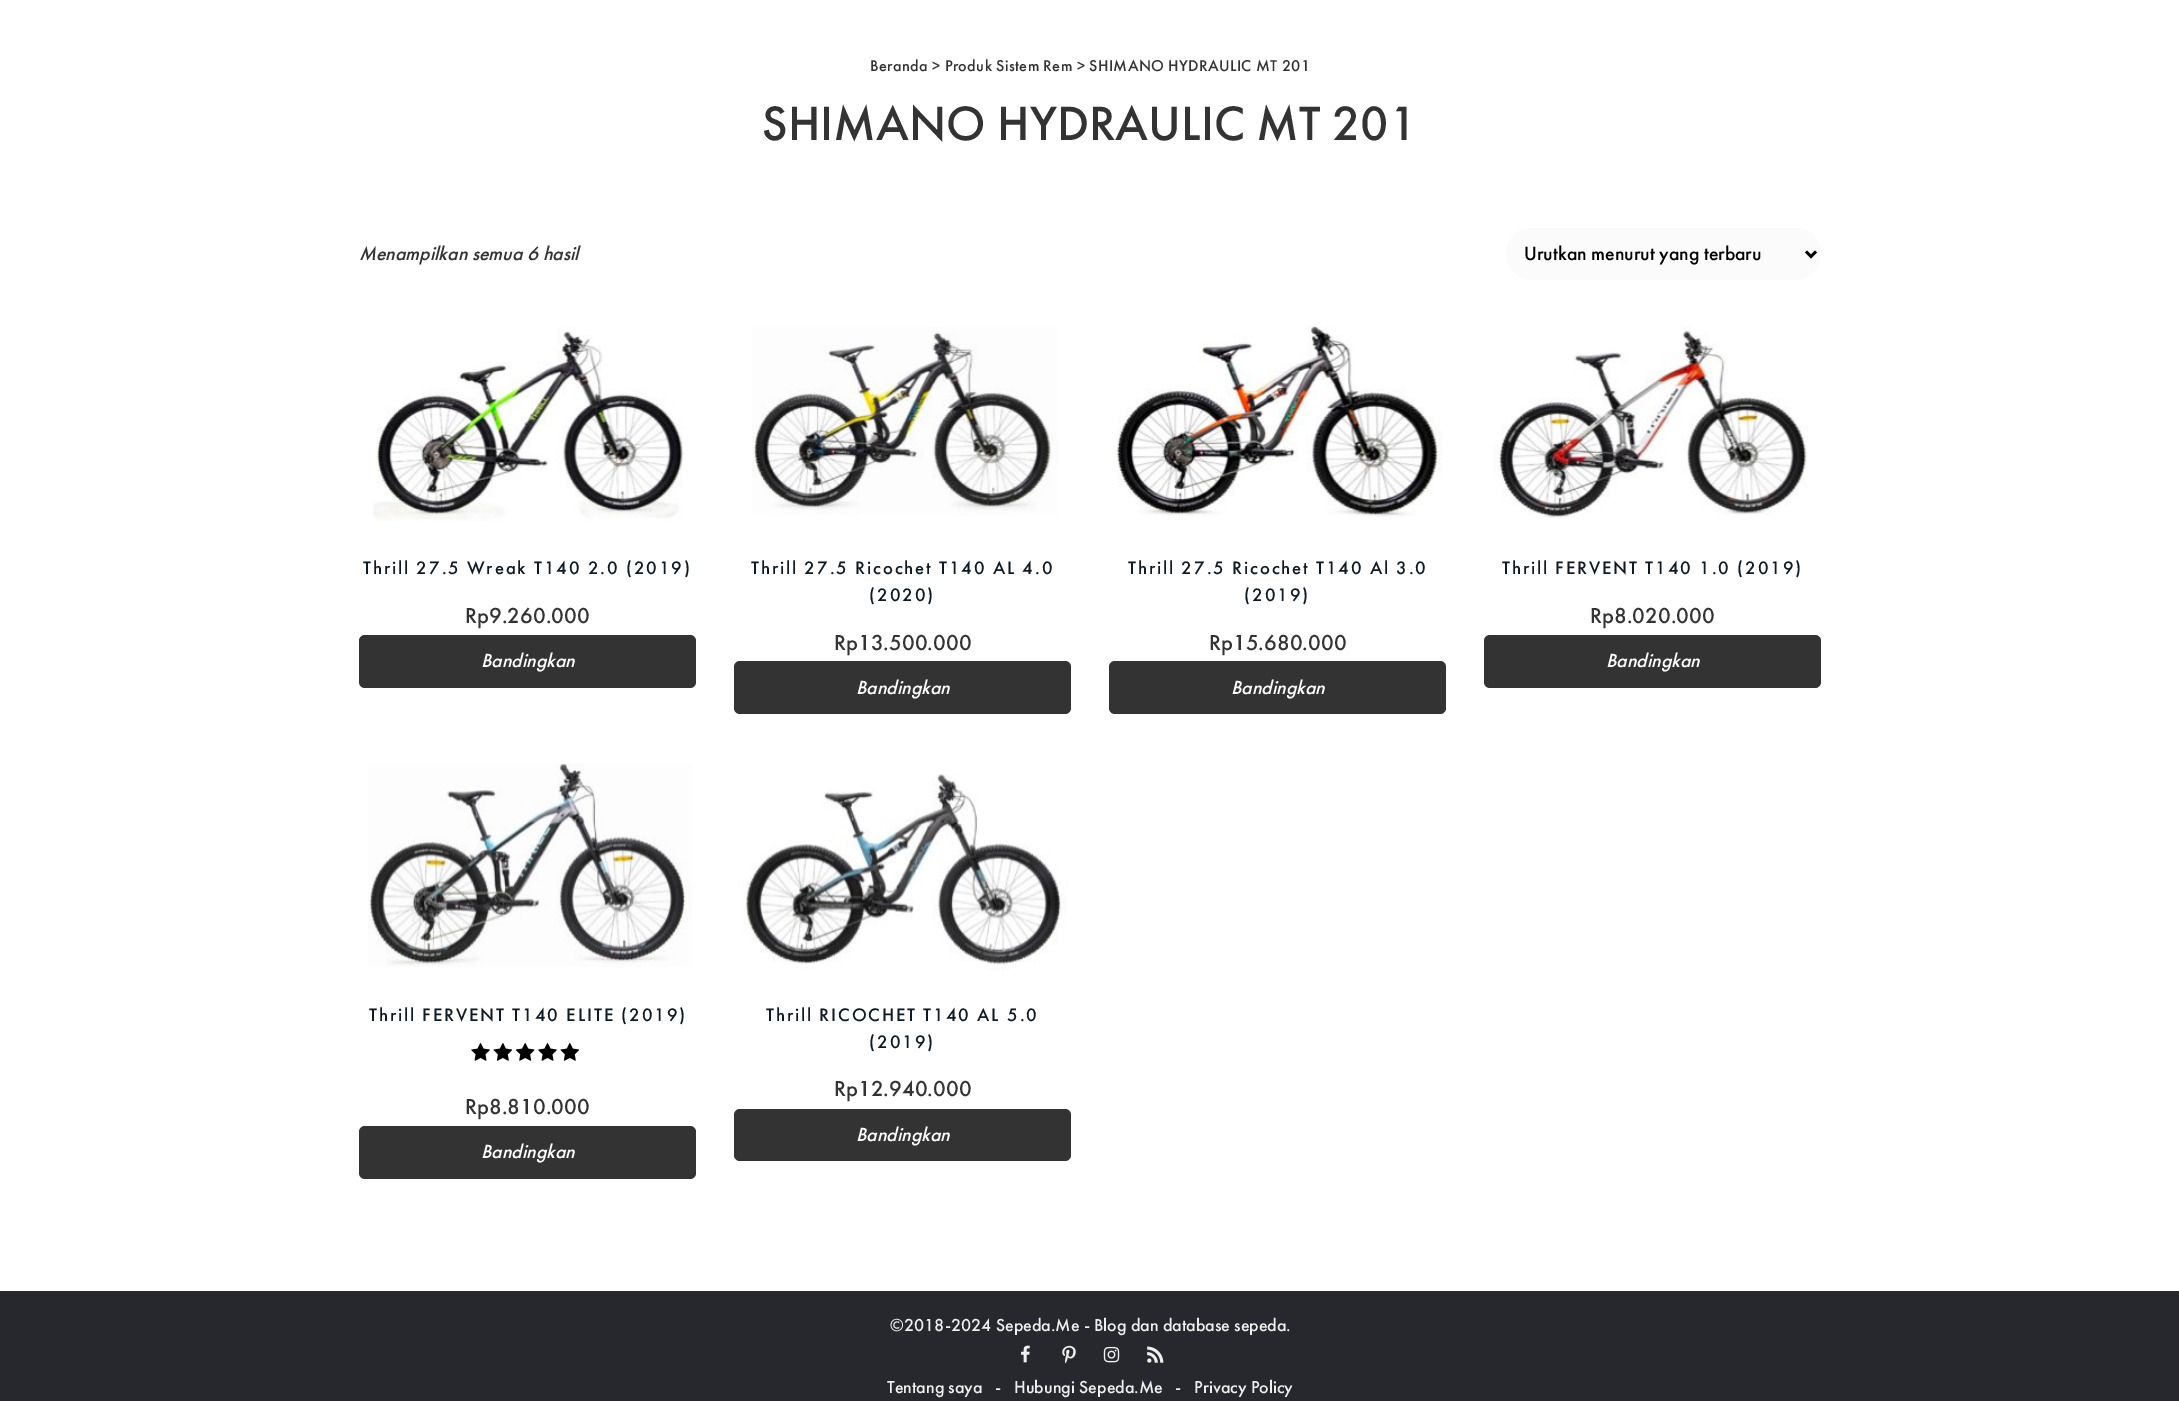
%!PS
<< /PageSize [2179 1401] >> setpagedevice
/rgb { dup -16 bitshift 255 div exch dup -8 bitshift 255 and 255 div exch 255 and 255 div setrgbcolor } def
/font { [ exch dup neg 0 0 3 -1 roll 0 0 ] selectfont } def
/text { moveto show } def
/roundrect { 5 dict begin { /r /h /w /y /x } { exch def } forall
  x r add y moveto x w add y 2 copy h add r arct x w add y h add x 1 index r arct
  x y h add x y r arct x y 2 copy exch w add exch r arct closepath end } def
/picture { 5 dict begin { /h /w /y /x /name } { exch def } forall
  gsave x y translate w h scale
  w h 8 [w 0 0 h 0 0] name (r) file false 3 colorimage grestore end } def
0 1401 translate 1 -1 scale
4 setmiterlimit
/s1 { /FuturaPT-Medium 50 font 16#333333 rgb } def
/s2 { /FuturaPT-MediumItalic 19.75 font 16#333333 rgb } def
/s3 { /FuturaPT-Medium 19.75 font 16#000000 rgb } def
/s4 { /FuturaPT-Medium 22.5 font 16#333333 rgb } def
/s5 { /FuturaPT-MediumItalic 19.75 font 16#FFFFFF rgb } def
/s6 { /FuturaPT-Medium 18 font 16#EFEFEF rgb } def
16#FFFFFF rgb
0 0 2179 1401 rectfill
/FuturaPT-Medium 16.25 font
16#333333 rgb
870 71 moveto 0.35 0 (Beranda > Produk Sistem Rem > SHIMANO HYDRAULIC MT 201) ashow
s1
(SHIMANO HYDRAULIC MT 201) 762 140 text
s2
(Menampilkan semua 6 hasil) 359 260 text
16#FBFBFB rgb
1506 228 315 52 26 roundrect fill
16#000000 rgb
2.5 setlinewidth
1806 251.5 moveto 1811 256.5 lineto 1816 251.5 lineto stroke
s3
(Urutkan menurut yang terbaru) 1524 260 text
(pic1.raw) 373 327 311 194 picture
/FuturaPT-Medium 18.75 font
16#0E1B25 rgb
363 574 moveto 1.9 0 (Thrill 27.5 Wreak T140 2.0 \(2019\)) ashow
s4
(Rp9.260.000) 465 623 text
359 635 337 53 6 roundrect fill
s5
(Bandingkan) 481 667 text
(pic2.raw) 752 327 306 188 picture
/FuturaPT-Medium 18.75 font
16#0E1B25 rgb
751 574 moveto 1.9 0 (Thrill 27.5 Ricochet T140 AL 4.0) ashow
869 601 moveto 1.9 0 (\(2020\)) ashow
s4
(Rp13.500.000) 834 650 text
734 661 337 53 6 roundrect fill
s5
(Bandingkan) 856 694 text
(pic3.raw) 1115 326 328 191 picture
/FuturaPT-Medium 18.75 font
16#0E1B25 rgb
1128 574 moveto 1.9 0 (Thrill 27.5 Ricochet T140 Al 3.0) ashow
1244 601 moveto 1.9 0 (\(2019\)) ashow
s4
(Rp15.680.000) 1209 650 text
1109 661 337 53 6 roundrect fill
s5
(Bandingkan) 1231 694 text
(pic4.raw) 1493 326 315 192 picture
/FuturaPT-Medium 18.75 font
16#0E1B25 rgb
1502 574 moveto 1.9 0 (Thrill FERVENT T140 1.0 \(2019\)) ashow
s4
(Rp8.020.000) 1590 623 text
1484 635 337 53 6 roundrect fill
s5
(Bandingkan) 1606 667 text
(pic5.raw) 368 763 324 204 picture
/FuturaPT-Medium 18.75 font
16#0E1B25 rgb
369 1021 moveto 1.9 0 (Thrill FERVENT T140 ELITE \(2019\)) ashow
(pic6.raw) 471 1043 108 18 picture
(pic7.raw) 471 1043 109 18 picture
s4
(Rp8.810.000) 465 1114 text
359 1126 337 53 6 roundrect fill
s5
(Bandingkan) 481 1158 text
(pic8.raw) 743 774 324 197 picture
/FuturaPT-Medium 18.75 font
16#0E1B25 rgb
766 1021 moveto 1.9 0 (Thrill RICOCHET T140 AL 5.0) ashow
869 1048 moveto 1.9 0 (\(2019\)) ashow
s4
(Rp12.940.000) 834 1096 text
734 1109 337 52 6 roundrect fill
s5
(Bandingkan) 856 1141 text
16#26282D rgb
0 1291 2179 110 rectfill
s6
(©2018-2024 Sepeda.Me - Blog dan database sepeda.) 890 1331 text
(pic9.raw) 1021 1345 9 18 picture
(pic10.raw) 1062 1345 14 19 picture
(pic11.raw) 1103 1346 17 17 picture
(pic12.raw) 1147 1346 17 17 picture
(Tentang saya) 887 1393 text
(-) 995 1393 text
(Hubungi Sepeda.Me) 1014 1393 text
(-) 1175 1393 text
(Privacy Policy) 1194 1393 text
showpage
